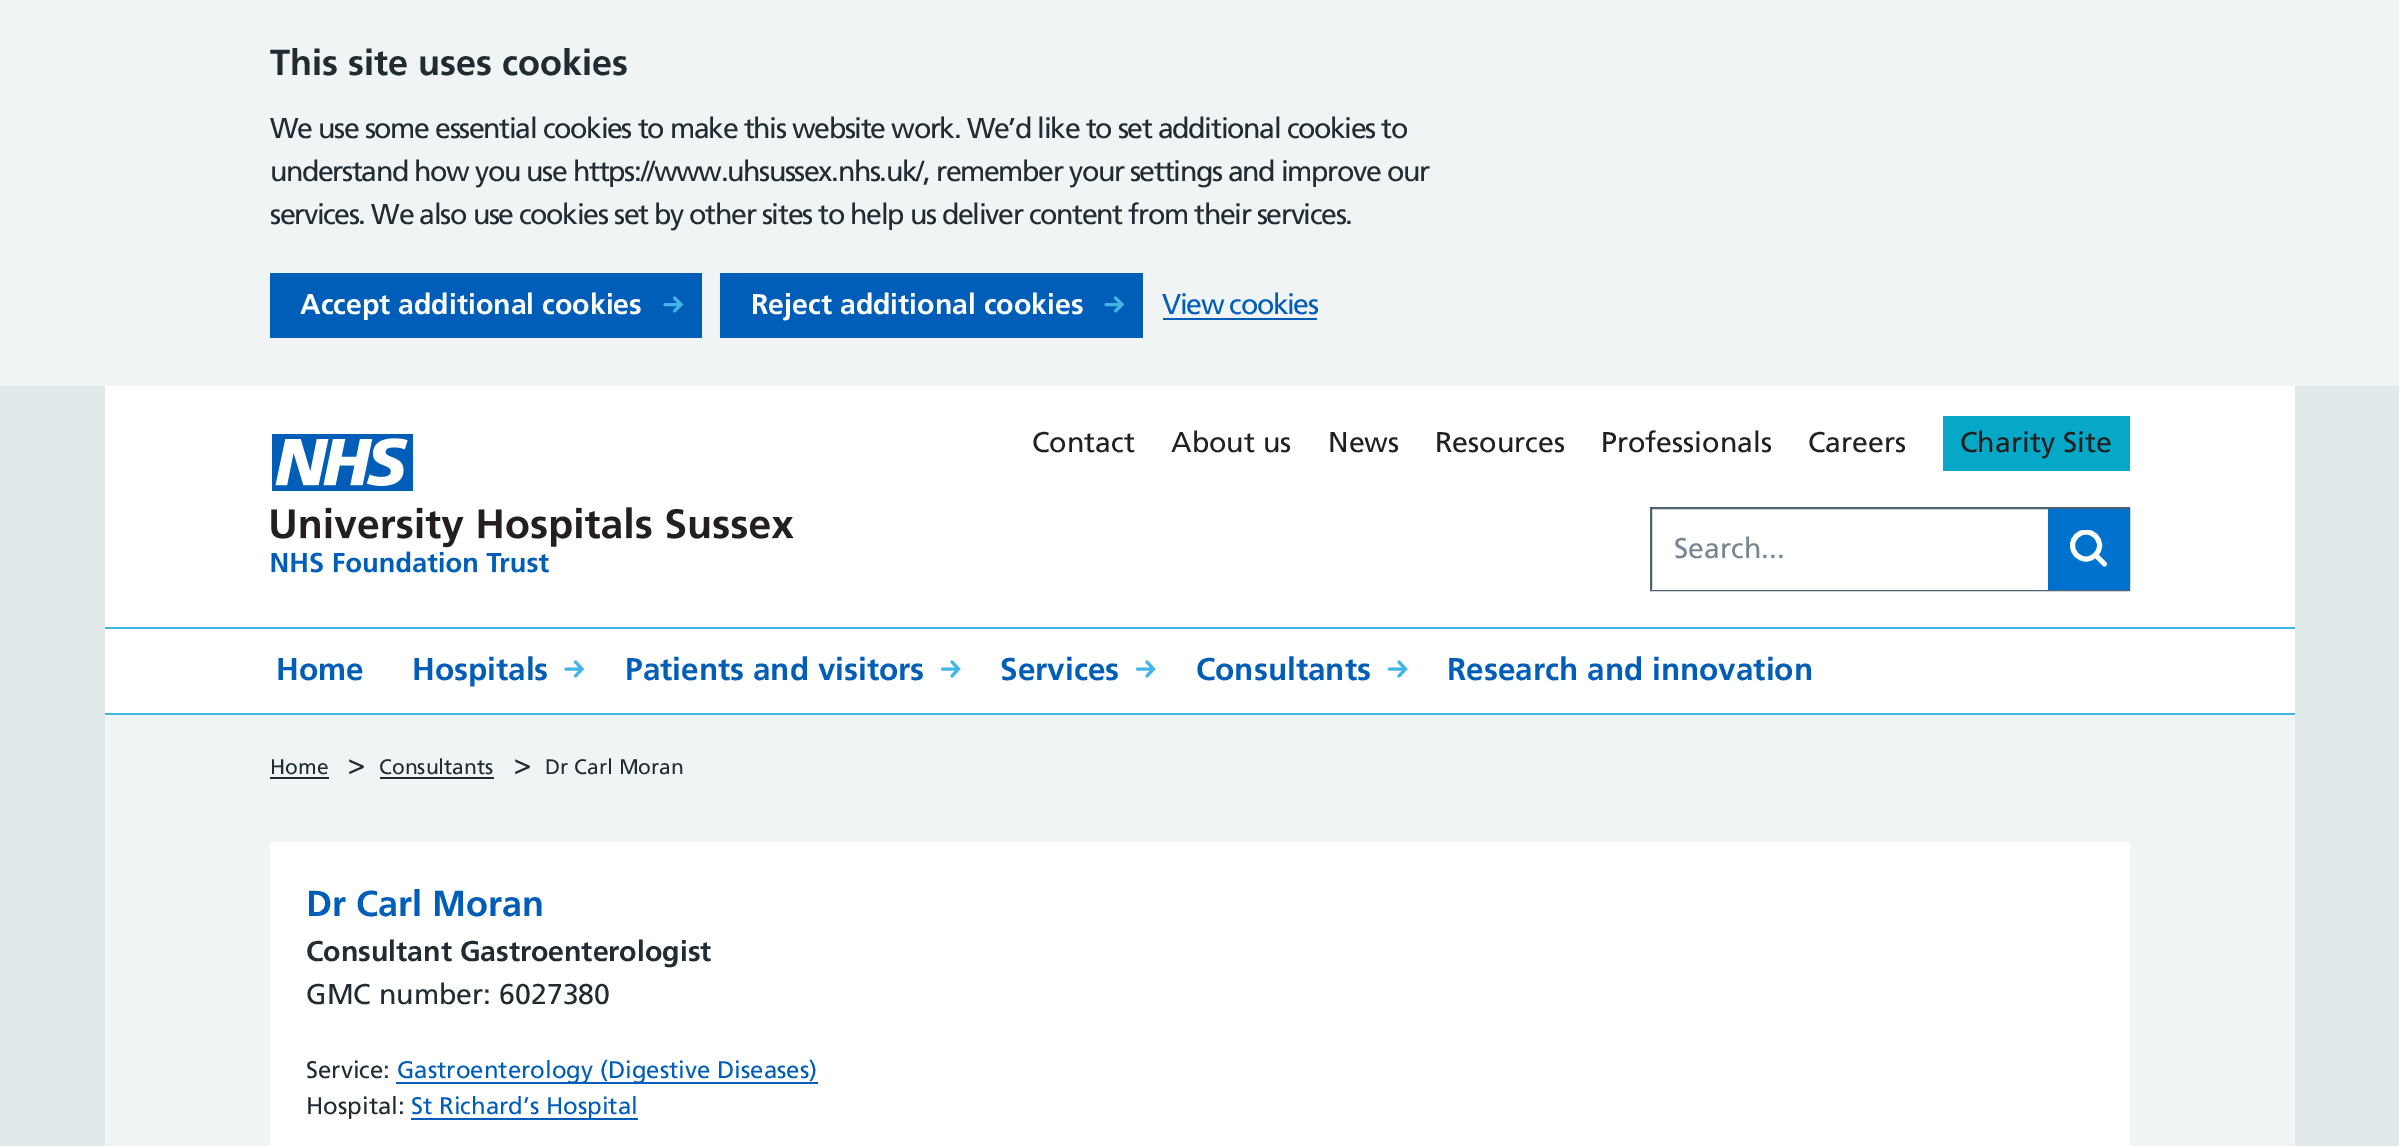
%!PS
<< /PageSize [2399 1146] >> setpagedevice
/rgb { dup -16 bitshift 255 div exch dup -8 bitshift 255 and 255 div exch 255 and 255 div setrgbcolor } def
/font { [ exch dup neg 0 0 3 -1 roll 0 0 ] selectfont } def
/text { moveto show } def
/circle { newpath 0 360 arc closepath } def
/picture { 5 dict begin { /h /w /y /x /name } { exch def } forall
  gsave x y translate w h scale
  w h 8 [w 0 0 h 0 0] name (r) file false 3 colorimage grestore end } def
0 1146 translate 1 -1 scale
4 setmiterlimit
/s1 { /Frutiger-Bold 36 font 16#212B32 rgb } def
/s2 { /Frutiger-Bold 28.5 font 16#FFFFFF rgb } def
/s3 { /Frutiger-Regular 28.5 font 16#231F20 rgb } def
/s4 { /Frutiger-Regular 28.5 font 16#768692 rgb } def
/s5 { /Frutiger-Bold 31.5 font 16#005EB8 rgb } def
/s6 { /Frutiger-Regular 21 font 16#212B32 rgb } def
/s7 { /Frutiger-Regular 28.5 font 16#212B32 rgb } def
/s8 { /Frutiger-Bold 36 font 16#005EB8 rgb } def
/s9 { /Frutiger-Bold 28.5 font 16#212B32 rgb } def
/s10 { /Frutiger-Regular 24 font 16#212B32 rgb } def
/s11 { /Frutiger-Regular 24 font 16#005EB8 rgb } def
16#E1E9EB rgb
0 0 2399 1146 rectfill
16#F0F4F5 rgb
105 715 2190 431 rectfill
0 0 2399 386 rectfill
s1
(This site uses cookies) 270 75 text
/Frutiger-Regular 28.5 font
270 138 moveto -1.42 0 (We use some essential cookies to make this website work. We’d like to set additional cookies to) ashow
270 181 moveto -1.42 0 (understand how you use https://www.uhsussex.nhs.uk/, remember your settings and improve our) ashow
270 224 moveto -1.42 0 (services. We also use cookies set by other sites to help us deliver content from their services.) ashow
16#005EB8 rgb
270 273 432 65 rectfill
16#41B6E6 rgb
3 setlinewidth
1 setlinecap
665 304.5 moveto 678 304.5 lineto 674.5 298 moveto 681 304.5 lineto 674.5 311 lineto stroke
s2
(Accept additional cookies) 300 314 text
16#005EB8 rgb
720 273 423 65 rectfill
16#41B6E6 rgb
1106 304.5 moveto 1119 304.5 lineto 1115.5 298 moveto 1122 304.5 lineto 1115.5 311 lineto stroke
s2
(Reject additional cookies) 751 314 text
/Frutiger-Regular 28.5 font
16#005EB8 rgb
1162 314 moveto -1.42 0 (View cookies) ashow
1163 318 154 2 rectfill
16#FFFFFF rgb
105 386 2190 327 rectfill
(pic1.raw) 271 434 523 139 picture
s3
(Contact) 1032 452 text
(About us) 1171 452 text
(News) 1328 452 text
(Resources) 1435 452 text
(Professionals) 1601 452 text
(Careers) 1808 452 text
16#05A9C7 rgb
1943 416 187 55 rectfill
s3
(Charity Site) 1960 452 text
16#4C6272 rgb
2 setlinewidth
0 setlinecap
1651 508 478 82 rectstroke
16#FFFFFF rgb
1652 589 396 1 rectfill
s4
(Search...) 1674 558 text
16#0072CE rgb
2048 509 81 81 rectfill
gsave
2070 530 38 37 rectclip
16#FFFFFF rgb
4.9 setlinewidth
2086 545.5 13.5 circle stroke
grestore
16#FFFFFF rgb
4.9 setlinewidth
1 setlinecap
1 setlinejoin
2095.5 555 moveto 2104.5 564 lineto stroke
16#41B6E6 rgb
105 627 2190 2 rectfill
105 713 2190 2 rectfill
s5
(Home) 276 680 text
16#41B6E6 rgb
3 setlinewidth
0 setlinejoin
566 669 moveto 579 669 lineto 575.5 662 moveto 582 669 lineto 575.5 676 lineto stroke
s5
(Hospitals) 412 680 text
16#41B6E6 rgb
942.5 669 moveto 955.5 669 lineto 952 662 moveto 958.5 669 lineto 952 676 lineto stroke
s5
(Patients and visitors) 625 680 text
16#41B6E6 rgb
1137.5 669 moveto 1150.5 669 lineto 1147 662 moveto 1153.5 669 lineto 1147 676 lineto stroke
s5
(Services) 1000 680 text
16#41B6E6 rgb
1389.5 669 moveto 1402.5 669 lineto 1399 662 moveto 1405.5 669 lineto 1399 676 lineto stroke
s5
(Consultants) 1196 680 text
(Research and innovation) 1447 680 text
s6
(Home) 270 774 text
270 777 59 2 rectfill
s7
(>) 348 774 text
s6
(Consultants) 379 774 text
380 777 114 2 rectfill
s7
(>) 514 774 text
s6
(Dr Carl Moran) 545 774 text
16#FFFFFF rgb
270 842 1860 304 rectfill
s8
(Dr Carl Moran) 306 916 text
s9
(Consultant Gastroenterologist) 306 961 text
s7
(GMC number: 6027380) 306 1004 text
s10
(Service:) 306 1078 text
16#005EB8 rgb
396 1082 422 2 rectfill
(Gastroenterology \(Digestive Diseases\)) 397 1078 text
s10
(Hospital:) 306 1114 text
16#005EB8 rgb
411 1118 227 2 rectfill
(St Richard’s Hospital) 411 1114 text
showpage
